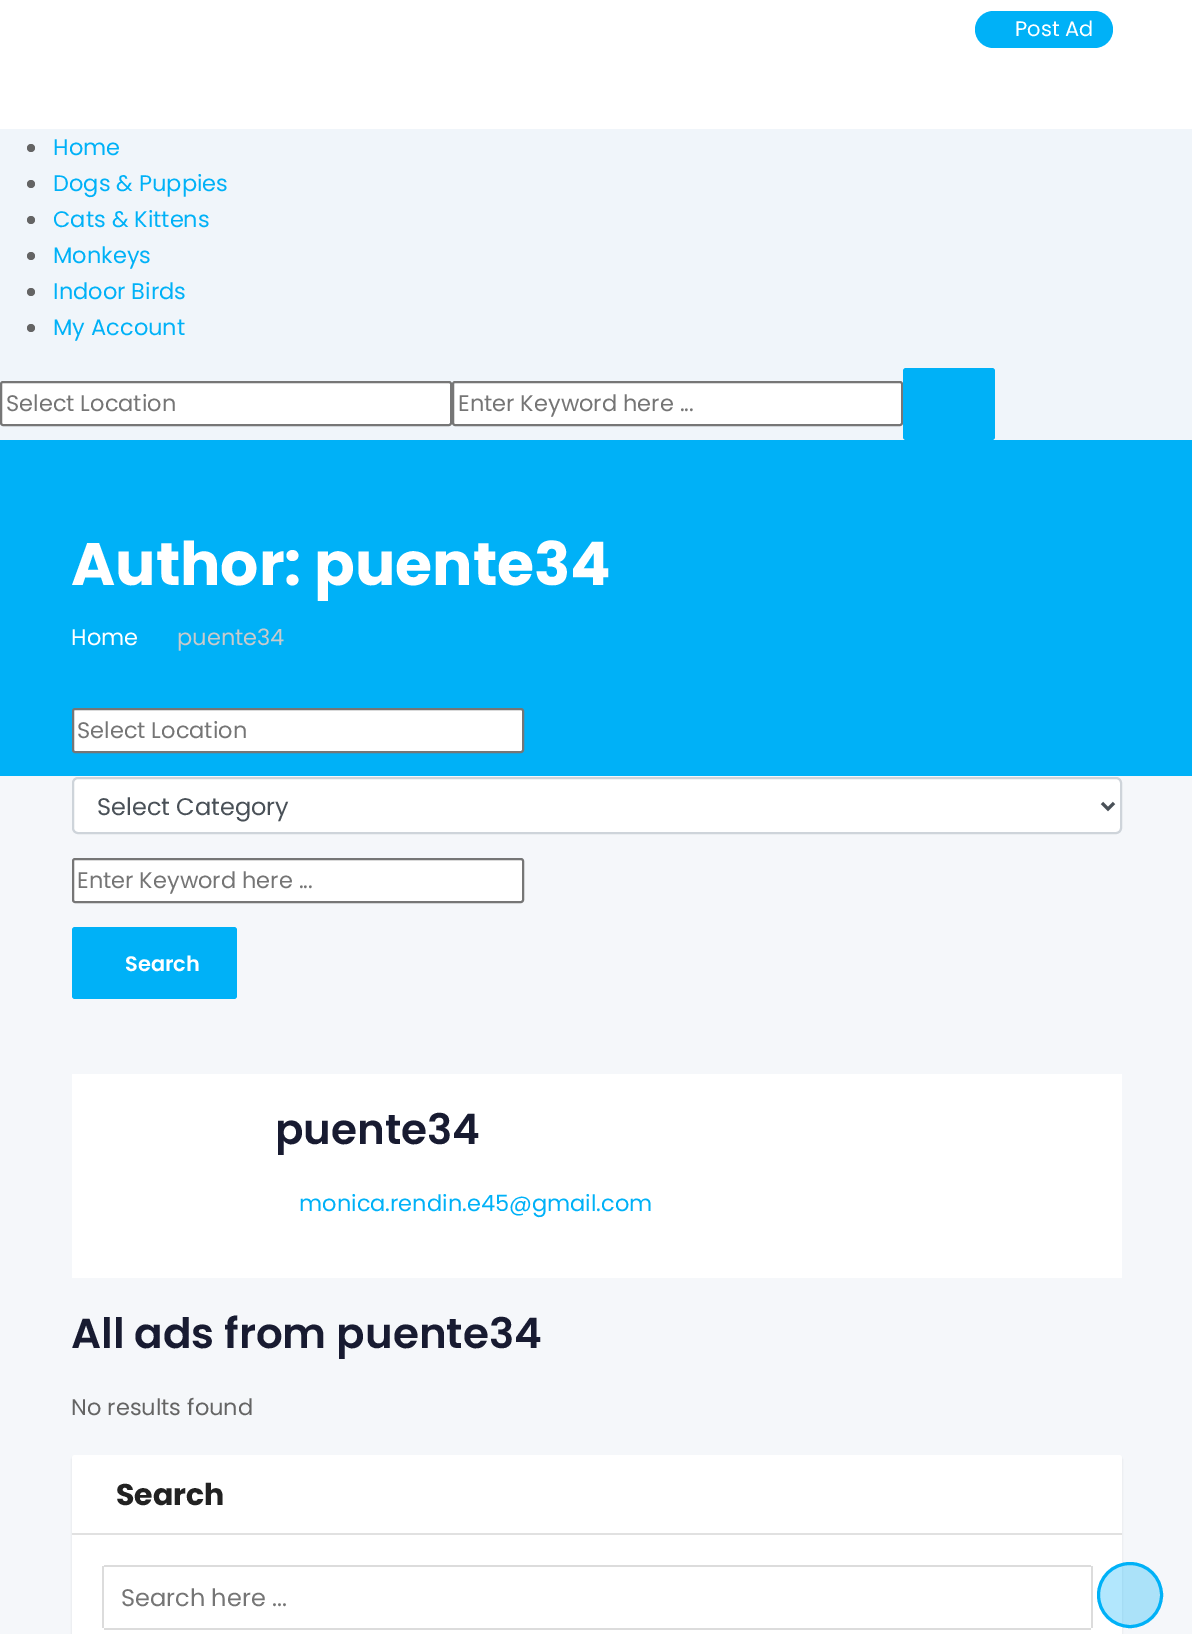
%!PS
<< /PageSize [1192 1634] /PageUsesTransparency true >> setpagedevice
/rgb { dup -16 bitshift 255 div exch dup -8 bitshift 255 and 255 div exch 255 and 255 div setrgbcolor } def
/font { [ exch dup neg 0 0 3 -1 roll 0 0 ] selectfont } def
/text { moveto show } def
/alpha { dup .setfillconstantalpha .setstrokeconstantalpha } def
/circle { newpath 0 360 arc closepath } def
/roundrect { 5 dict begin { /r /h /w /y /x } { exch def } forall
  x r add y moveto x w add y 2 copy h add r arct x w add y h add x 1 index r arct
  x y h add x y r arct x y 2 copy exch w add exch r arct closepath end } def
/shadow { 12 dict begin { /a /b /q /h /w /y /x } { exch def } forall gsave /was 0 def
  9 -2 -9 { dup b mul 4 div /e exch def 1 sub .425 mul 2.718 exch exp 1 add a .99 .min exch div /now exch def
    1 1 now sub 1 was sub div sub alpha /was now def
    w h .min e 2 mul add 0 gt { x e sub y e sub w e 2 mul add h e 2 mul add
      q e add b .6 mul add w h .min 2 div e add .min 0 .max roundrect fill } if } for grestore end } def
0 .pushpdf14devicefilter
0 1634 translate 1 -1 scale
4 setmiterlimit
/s1 { /Poppins-Regular 21 font 16#FFFFFF rgb } def
/s2 { /Poppins-Regular 22.5 font 16#00B1F7 rgb } def
/s3 { /Poppins-Regular 22.5 font 16#757575 rgb } def
/s4 { /Poppins-Bold 60 font 16#FFFFFF rgb } def
/s5 { /Poppins-Regular 22.5 font 16#FFFFFF rgb } def
/s6 { /Poppins-Regular 22.5 font 16#CACACA rgb } def
/s7 { /Poppins-Regular 24 font 16#495057 rgb } def
/s8 { /Poppins-SemiBold 21 font 16#FFFFFF rgb } def
/s9 { /Poppins-SemiBold 42 font 16#181B31 rgb } def
/s10 { /Poppins-Regular 22.5 font 16#646464 rgb } def
/s11 { /Poppins-Bold 30 font 16#222222 rgb } def
/s12 { /Poppins-Regular 24 font 16#757575 rgb } def
16#F0F5FA rgb
0 0 1192 1634 rectfill
16#FFFFFF rgb
0 0 1192 129 rectfill
16#00B1F7 rgb
975 11 138 37 18.5 roundrect fill
s1
(Post Ad) 1015 36 text
16#646464 rgb
31 148 4 circle fill
s2
(Home) 53 155 text
16#646464 rgb
31 184 4 circle fill
s2
(Dogs & Puppies) 53 191 text
16#646464 rgb
31 220 4 circle fill
s2
(Cats & Kittens) 53 227 text
16#646464 rgb
31 256 4 circle fill
s2
(Monkeys) 53 263 text
16#646464 rgb
31 292 4 circle fill
s2
(Indoor Birds) 53 299 text
16#646464 rgb
31 328 4 circle fill
s2
(My Account) 53 335 text
16#FFFFFF rgb
1 382 450 43 2 roundrect gsave fill grestore
16#767676 rgb
2 setlinewidth
stroke
s3
(Select Location) 6 411 text
16#FFFFFF rgb
453 382 449 43 2 roundrect gsave fill grestore
16#767676 rgb
stroke
s3
(Enter Keyword here ...) 458 411 text
16#00B1F7 rgb
903 368 92 72 3 roundrect fill
16#F5F7FA rgb
0 776 1192 858 rectfill
16#00B1F7 rgb
0 440 1192 336 rectfill
s4
(Author: puente34) 71 585 text
s5
(Home) 71 645 text
s6
(puente34) 177 645 text
16#FFFFFF rgb
73 709 450 43 2 roundrect gsave fill grestore
16#767676 rgb
stroke
s3
(Select Location) 77 738 text
16#FFFFFF rgb
73 778 1048 55 5 roundrect gsave fill grestore
16#CED4DA rgb
stroke
16#495057 rgb
3 setlinewidth
1102 803 moveto 1108 809 lineto 1114 803 lineto stroke
s7
(Select Category) 97 815 text
16#FFFFFF rgb
73 859 450 43 2 roundrect gsave fill grestore
16#767676 rgb
2 setlinewidth
stroke
s3
(Enter Keyword here ...) 77 888 text
16#00B1F7 rgb
72 927 165 72 3 roundrect fill
s8
(Search) 125 971 text
72 1074 1050 204 rectfill
s9
(puente34) 275 1144 text
s2
(monica.rendin.e45@gmail.com) 299 1211 text
s9
(All ads from puente34) 71 1348 text
s10
(No results found) 71 1415 text
16#000000 rgb
72 1457 1050 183 3 1 0.1 shadow
16#FFFFFF rgb
72 1455 1050 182 3 roundrect fill
16#E1E1E1 rgb
72 1533 1050 2 rectfill
s11
(Search) 116 1505 text
16#DCDCDC rgb
104 1565 987 2 rectfill
1091 1566 2 62 rectfill
104 1628 987 2 rectfill
102 1566 2 62 rectfill
s12
(Search here ...) 121 1606 text
0.3 alpha
16#00B1F7 rgb
1130 1595 31.5 circle fill
1 alpha
3 setlinewidth
1130 1595 31.5 circle stroke
.poppdf14devicefilter showpage
